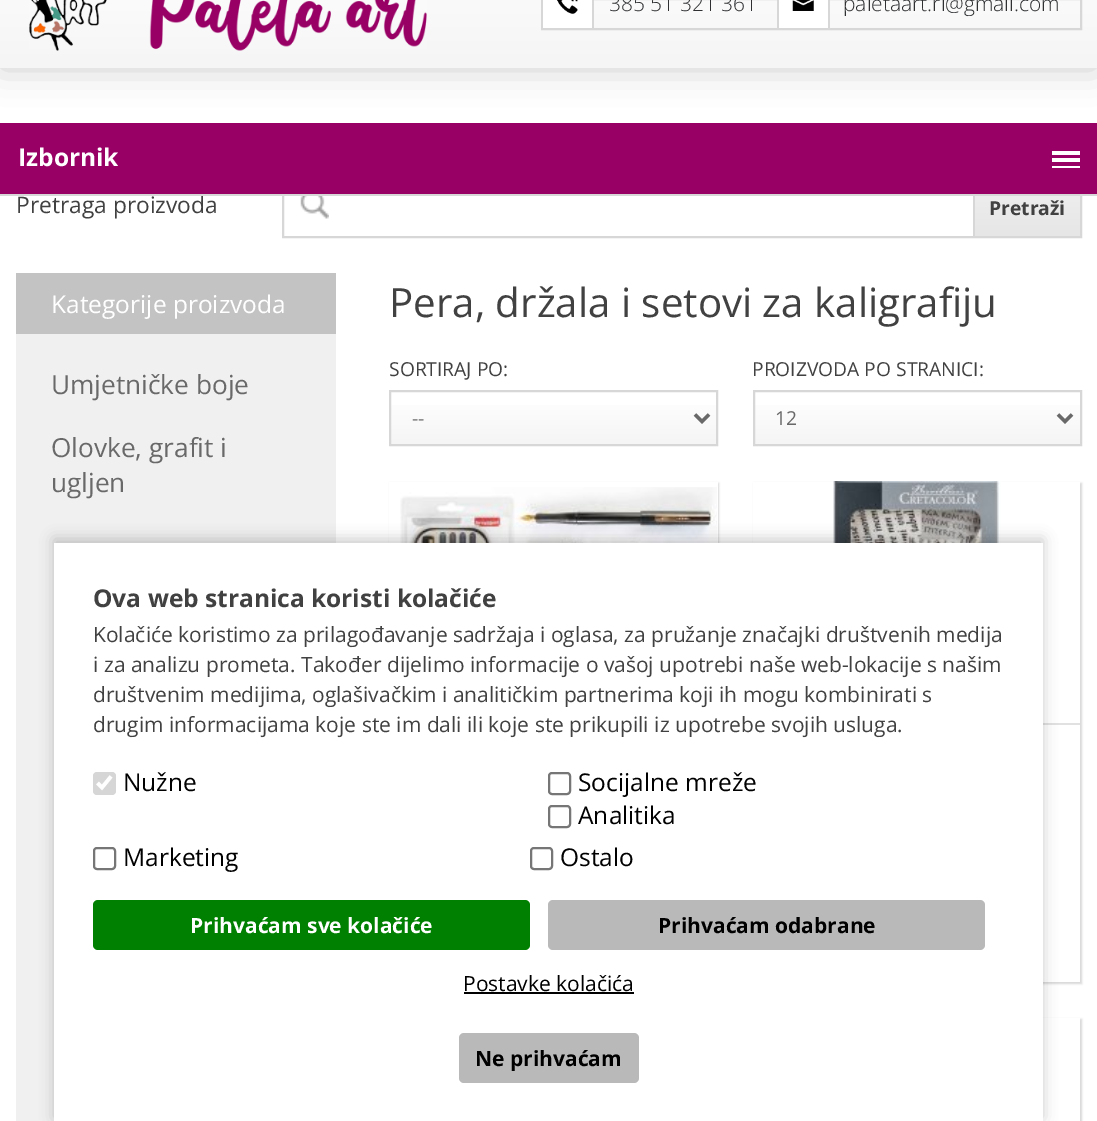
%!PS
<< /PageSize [1097 1121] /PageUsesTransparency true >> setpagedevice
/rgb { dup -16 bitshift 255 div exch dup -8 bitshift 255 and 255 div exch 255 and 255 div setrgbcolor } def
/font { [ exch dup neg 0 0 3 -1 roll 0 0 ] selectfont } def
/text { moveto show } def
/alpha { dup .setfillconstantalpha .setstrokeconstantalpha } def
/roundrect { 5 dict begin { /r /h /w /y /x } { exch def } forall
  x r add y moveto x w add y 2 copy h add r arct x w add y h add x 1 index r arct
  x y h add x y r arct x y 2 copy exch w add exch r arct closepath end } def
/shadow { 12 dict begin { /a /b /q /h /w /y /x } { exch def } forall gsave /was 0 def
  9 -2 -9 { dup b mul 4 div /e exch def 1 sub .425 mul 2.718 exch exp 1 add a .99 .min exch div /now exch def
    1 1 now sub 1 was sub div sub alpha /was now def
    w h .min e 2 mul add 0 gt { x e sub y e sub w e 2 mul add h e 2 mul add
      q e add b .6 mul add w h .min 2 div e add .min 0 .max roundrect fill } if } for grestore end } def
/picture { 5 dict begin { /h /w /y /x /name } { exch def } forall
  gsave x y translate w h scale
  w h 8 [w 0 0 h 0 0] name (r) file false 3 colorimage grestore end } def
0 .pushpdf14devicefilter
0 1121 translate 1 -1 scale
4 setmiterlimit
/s1 { /OpenSans-Light 21 font 16#2F3032 rgb } def
/s2 { /OpenSans-Regular 22.75 font 16#414141 rgb } def
/s3 { /OpenSans-Bold 19.25 font 16#414141 rgb } def
/s4 { /OpenSans-Regular 24.5 font 16#FFFFFF rgb } def
/s5 { /OpenSans-Regular 26.25 font 16#696969 rgb } def
/s6 { /OpenSans-Regular 40.25 font 16#414141 rgb } def
/s7 { /OpenSans-Regular 19.25 font 16#414141 rgb } def
/s8 { /OpenSans-Regular 19.25 font 16#696969 rgb } def
/s9 { /OpenSans-Bold 24.5 font 16#FFFFFF rgb } def
/s10 { /OpenSans-Bold 24.5 font 16#414141 rgb } def
/s11 { /OpenSans-Regular 21 font 16#414141 rgb } def
/s12 { /OpenSans-Regular 24.5 font 16#000000 rgb } def
/s13 { /OpenSans-Bold 21 font 16#FFFFFF rgb } def
/s14 { /OpenSans-Bold 21 font 16#000000 rgb } def
/s15 { /OpenSans-Regular 21 font 16#000000 rgb } def
16#FFFFFF rgb
0 0 1097 1121 rectfill
16#000000 rgb
0 -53 1097 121 0 17.5 0.2 shadow
gsave 0 0 moveto 1097 0 lineto 1097 68 lineto 0 68 lineto closepath clip newpath
<< /ShadingType 2 /ColorSpace /DeviceRGB /Coords [549 -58 549 68] /Extend [true true] /Function << /FunctionType 2 /Domain [0 1] /C0 [1 1 1] /C1 [0.961 0.961 0.961] /N 1 >> >> shfill grestore
(pic1.raw) 29 0 398 51 picture
16#D7D7D7 rgb
2 setlinewidth
542 -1 539 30 rectstroke
16#FFFFFF rgb
543 0 49 28 rectfill
16#D7D7D7 rgb
592 0 2 28 rectfill
(pic2.raw) 557 0 21 14 picture
s1
(385 51 321 361) 609 11 text
16#FFFFFF rgb
779 0 49 28 rectfill
16#D7D7D7 rgb
828 0 2 28 rectfill
777 0 2 28 rectfill
(pic3.raw) 792 0 22 11 picture
s1
(paletaart.ri@gmail.com) 843 11 text
s2
(Pretraga proizvoda) 16 213 text
(pic4.raw) 300 196 29 23 picture
16#D7D7D7 rgb
283 174 798 63 rectstroke
gsave 975 196 moveto 1080 196 lineto 1080 236 lineto 975 236 lineto closepath clip newpath
<< /ShadingType 2 /ColorSpace /DeviceRGB /Coords [1027 177 1027 236] /Extend [true true] /Function << /FunctionType 2 /Domain [0 1] /C0 [0.941 0.941 0.941] /C1 [0.902 0.902 0.902] /N 1 >> >> shfill grestore
973 196 2 40 rectfill
s3
(Pretraži) 989 215 text
16#C3C3C3 rgb
16 273 320 61 rectfill
s4
(Kategorije proizvoda) 51 313 text
16#F0F0F0 rgb
16 334 320 787 rectfill
s5
(Umjetničke boje) 51 394 text
(Olovke, grafit i) 51 457 text
(ugljen) 51 492 text
s6
(Pera, držala i setovi za kaligrafiju) 389 317 text
s7
(SORTIRAJ PO:) 389 376 text
gsave 391 405 moveto 716 405 lineto 716 444 lineto 391 444 lineto closepath clip newpath
<< /ShadingType 2 /ColorSpace /DeviceRGB /Coords [553 392 553 445] /Extend [true true] /Function << /FunctionType 2 /Domain [0 1] /C0 [1 1 1] /C1 [0.961 0.961 0.961] /N 1 >> >> shfill grestore
16#D7D7D7 rgb
390 391 327 54 rectstroke
16#696969 rgb
3.5 setlinewidth
695 414.5 moveto 702 421.5 lineto 709 414.5 lineto stroke
(--) 412 425 text
s7
(PROIZVODA PO STRANICI:) 752 376 text
gsave 755 405 moveto 1080 405 lineto 1080 444 lineto 755 444 lineto closepath clip newpath
<< /ShadingType 2 /ColorSpace /DeviceRGB /Coords [917 392 917 445] /Extend [true true] /Function << /FunctionType 2 /Domain [0 1] /C0 [1 1 1] /C1 [0.961 0.961 0.961] /N 1 >> >> shfill grestore
16#D7D7D7 rgb
2 setlinewidth
754 391 327 54 rectstroke
16#696969 rgb
3.5 setlinewidth
1058 414.5 moveto 1065 421.5 lineto 1072 414.5 lineto stroke
(12) 775 425 text
16#000000 rgb
390 483 329 501 0 1 0.15 shadow
16#FFFFFF rgb
389 482 329 61 rectfill
(pic5.raw) 400 487 317 56 picture
16#000000 rgb
754 483 328 501 0 1 0.15 shadow
16#FFFFFF rgb
753 482 327 500 rectfill
16#E1E1E1 rgb
1043 723 37 2 rectfill
(pic6.raw) 833 481 168 62 picture
16#000000 rgb
754 1019 328 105 0 1 0.15 shadow
16#FFFFFF rgb
1043 1018 37 103 rectfill
16#D7D7D7 rgb
0 194 1097 2 rectfill
16#980065 rgb
0 123 1097 71 rectfill
s9
(Izbornik) 18 166 text
1052 151 28 4 rectfill
1052 158 28 4 rectfill
1052 166 28 2 rectfill
16#000000 rgb
54 539 989 579 0 7 0.2 shadow
16#FFFFFF rgb
54 543 989 578 rectfill
s10
(Ova web stranica koristi kolačiće) 93 607 text
s11
(Kolačiće koristimo za prilagođavanje sadržaja i oglasa, za pružanje značajki društvenih medija) 93 642 text
(i za analizu prometa. Također dijelimo informacije o vašoj upotrebi naše web-lokacije s našim) 93 672 text
(društvenim medijima, oglašivačkim i analitičkim partnerima koji ih mogu kombinirati s) 93 702 text
(drugim informacijama koje ste im dali ili koje ste prikupili iz upotrebe svojih usluga.) 93 732 text
16#D6D6D6 rgb
93 772 23 23 4 roundrect fill
16#FFFFFF rgb
3.6 setlinewidth
97.5 783 moveto 102 787.5 lineto 111 776.5 lineto stroke
s12
(Nužne) 123 791 text
16#767676 rgb
2 setlinewidth
549 773 21 21 3 roundrect stroke
s12
(Socijalne mreže) 578 791 text
16#767676 rgb
549 806 21 21 3 roundrect stroke
s12
(Analitika) 578 824 text
16#767676 rgb
94 848 21 21 3 roundrect stroke
s12
(Marketing) 123 866 text
16#767676 rgb
531 848 21 21 3 roundrect stroke
s12
(Ostalo) 560 866 text
16#008000 rgb
93 900 437 50 5 roundrect fill
s13
(Prihvaćam sve kolačiće) 190 933 text
16#B9B9B9 rgb
548 900 437 50 5 roundrect fill
s14
(Prihvaćam odabrane) 658 933 text
s15
(Postavke kolačića) 463 991 text
464 992 170 2 rectfill
16#B9B9B9 rgb
459 1033 180 50 5 roundrect fill
s14
(Ne prihvaćam) 475 1066 text
.poppdf14devicefilter showpage
